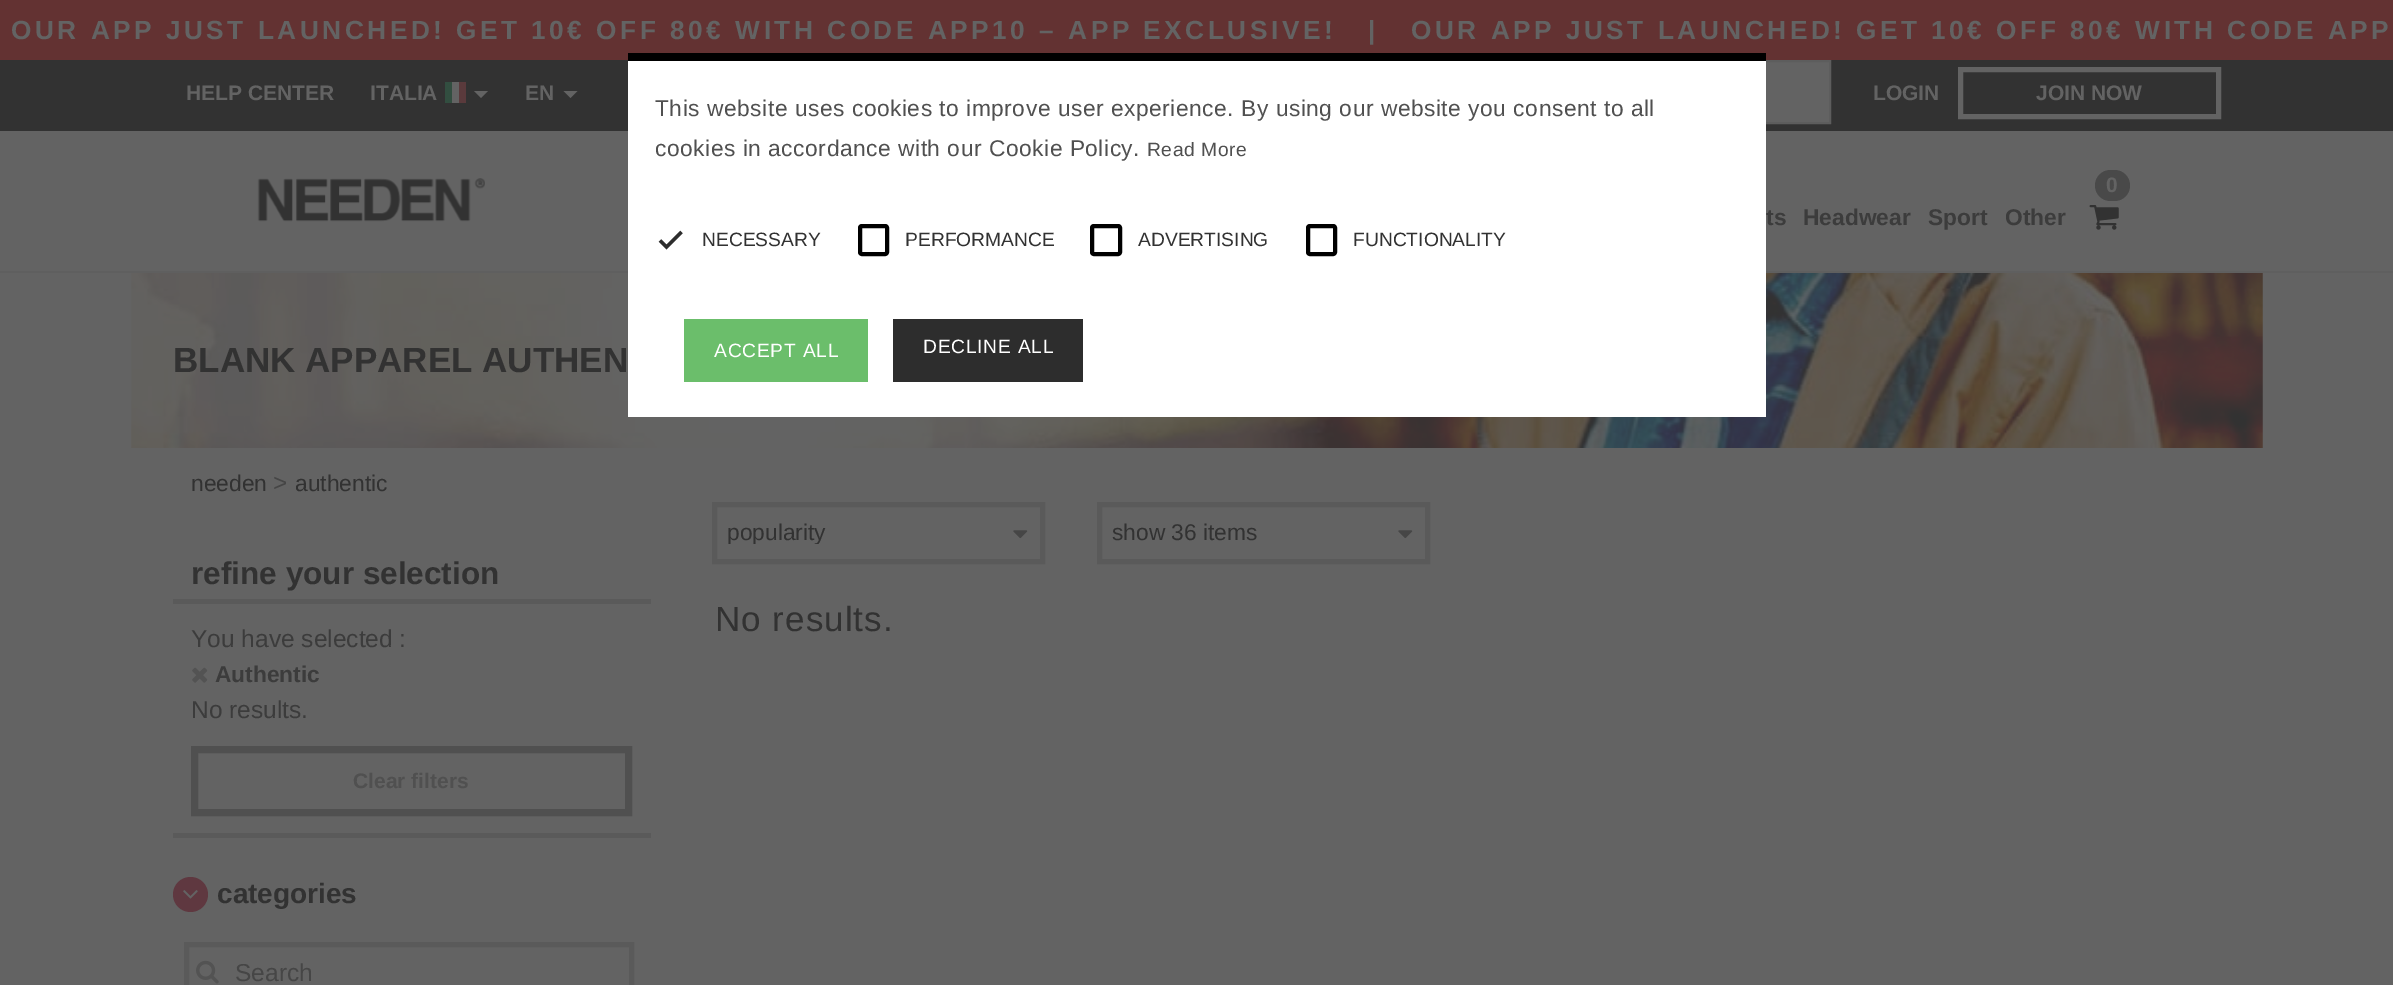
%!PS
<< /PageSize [2393 985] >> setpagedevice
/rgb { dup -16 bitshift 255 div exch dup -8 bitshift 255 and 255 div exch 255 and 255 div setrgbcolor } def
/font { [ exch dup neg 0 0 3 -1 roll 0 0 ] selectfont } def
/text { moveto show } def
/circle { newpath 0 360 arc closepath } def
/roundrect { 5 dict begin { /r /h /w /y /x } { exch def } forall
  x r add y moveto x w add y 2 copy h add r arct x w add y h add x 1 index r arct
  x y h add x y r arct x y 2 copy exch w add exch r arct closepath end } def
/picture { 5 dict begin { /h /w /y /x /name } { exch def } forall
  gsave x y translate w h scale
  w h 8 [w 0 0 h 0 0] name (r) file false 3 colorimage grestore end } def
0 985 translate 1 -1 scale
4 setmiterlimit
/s1 { /LiberationSans-Bold 21 font 16#636363 rgb } def
/s2 { /LiberationSans-Bold 22.75 font 16#3C3C3C rgb } def
/s3 { /LiberationSans-Regular 19.25 font 16#323232 rgb } def
/s4 { /LiberationSans-Bold 35 font 16#323232 rgb } def
/s5 { /LiberationSans-Regular 22.75 font 16#323232 rgb } def
/s6 { /LiberationSans-Regular 24.5 font 16#464646 rgb } def
/s7 { /LiberationSans-Bold 31.5 font 16#323232 rgb } def
/s8 { /LiberationSans-Regular 24.5 font 16#3C3C3C rgb } def
/s9 { /LiberationSans-Bold 21 font 16#505050 rgb } def
/s10 { /LiberationSans-Bold 28 font 16#323232 rgb } def
16#636363 rgb
0 0 2393 985 rectfill
16#633232 rgb
0 0 2393 60 rectfill
/LiberationSans-Bold 26.25 font
16#636363 rgb
11 39 moveto 3.5 0 (OUR APP JUST LAUNCHED! GET 10€ OFF 80€ WITH CODE APP10 – APP EXCLUSIVE!) ashow
1368 39 moveto 3.5 0 (|) ashow
1411 39 moveto 3.5 0 (OUR APP JUST LAUNCHED! GET 10€ OFF 80€ WITH CODE APP) ashow
16#323232 rgb
0 60 2393 71 rectfill
s1
(HELP CENTER) 186 100 text
(ITALIA) 370 100 text
452 82 7 21 rectfill
16#324E40 rgb
445 82 7 21 rectfill
16#5A3A3C rgb
459 82 7 21 rectfill
16#636363 rgb
474 91 moveto 488 91 lineto 481 98 lineto closepath fill
(EN) 525 100 text
563.5 91 moveto 577.5 91 lineto 570.5 98 lineto closepath fill
1766 62 63 60 rectfill
16#5D5D5D rgb
2 setlinewidth
1455 61 375 62 rectstroke
s1
(LOGIN) 1873 100 text
5 setlinewidth
1960.5 69.5 258 47 rectstroke
(JOIN NOW) 2036 100 text
16#5F5F5F rgb
0 271 2393 2 rectfill
s2
(ts) 1766 225 text
(pic3.raw) 131 273 2132 175 picture
16#FFFFFF rgb
628 61 1138 356 rectfill
16#000000 rgb
628 53 1138 8 rectfill
/LiberationSans-Regular 22.75 font
16#505050 rgb
655 116 moveto 0.53 0 (This website uses cookies to improve user experience. By using our website you consent to all) ashow
655 156 moveto 0.53 0 (cookies in accordance with our Cookie Policy.) ashow
/LiberationSans-Regular 19.25 font
1147 156 moveto 0.53 0 (Read More) ashow
16#2D2D2D rgb
3.2 setlinewidth
660 240.5 moveto 666.5 247 lineto 681.5 232 lineto stroke
s3
(NECESSARY) 702 246 text
16#000000 rgb
4 setlinewidth
860 226 27 28 2 roundrect stroke
s3
(PERFORMANCE) 905 246 text
16#000000 rgb
1092 226 28 28 2 roundrect stroke
s3
(ADVERTISING) 1138 246 text
16#000000 rgb
1308 226 27 28 2 roundrect stroke
s3
(FUNCTIONALITY) 1353 246 text
16#6BBE6B rgb
684 319 184 63 rectfill
16#FFFFFF rgb
714 357 moveto 0.75 0 (ACCEPT ALL) ashow
16#2D2D2D rgb
893 319 190 63 rectfill
16#FFFFFF rgb
923 353 moveto 0.75 0 (DECLINE ALL) ashow
(pic1.raw) 257 178 228 44 picture
16#494949 rgb
2095 170 35 31 15.5 roundrect fill
s1
(0) 2106 192 text
(pic2.raw) 2089 205 30 25 picture
s2
(Headwear) 1803 225 text
(Sport) 1928 225 text
(Other) 2005 225 text
s4
(BLANK APPAREL AUTHEN) 173 372 text
s5
(needen) 191 491 text
s6
(>) 273 491 text
s5
(authentic) 295 491 text
16#5A5A5A rgb
173 599 478 5 rectfill
s7
(refine your selection) 191 584 text
s8
(You have selected :) 191 647 text
(pic4.raw) 192 667 16 16 picture
s2
(Authentic) 215 682 text
s8
(No results.) 191 718 text
16#505050 rgb
7 setlinewidth
194.5 749.5 434 63 rectstroke
s9
(Clear filters) 353 788 text
16#5A5A5A rgb
173 833 478 5 rectfill
16#5F3840 rgb
190.5 894.5 17.5 circle fill
(pic5.raw) 183 890 15 9 picture
s10
(categories) 217 903 text
16#5A5A5A rgb
5 setlinewidth
186.5 944.5 445 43 rectstroke
(pic6.raw) 196 960 23 24 picture
s6
(Search) 235 981 text
16#5A5A5A rgb
714.5 504.5 328 57 rectstroke
gsave
728 522 268 22 rectclip
s5
(popularity) 727 540 text
grestore
(pic7.raw) 1013 530 15 9 picture
1099.5 504.5 328 57 rectstroke
s5
(show 36 items) 1112 540 text
(pic7.raw) 1398 530 15 9 picture
/LiberationSans-Regular 35 font
715 631 moveto 1 0 (No results.) ashow
showpage
